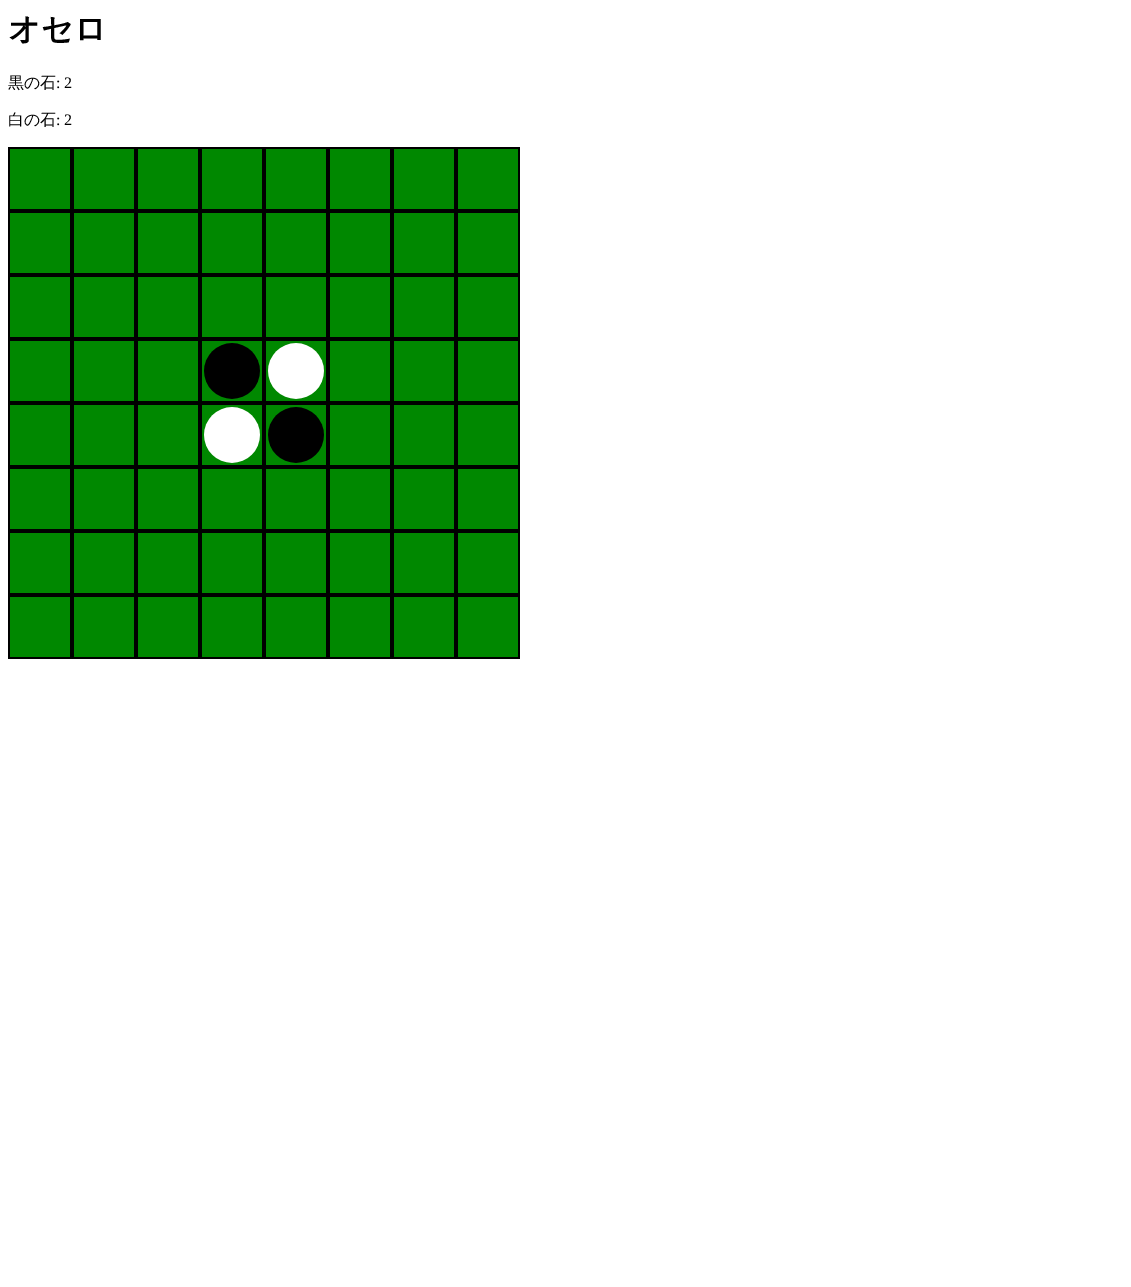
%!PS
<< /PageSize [1131 1287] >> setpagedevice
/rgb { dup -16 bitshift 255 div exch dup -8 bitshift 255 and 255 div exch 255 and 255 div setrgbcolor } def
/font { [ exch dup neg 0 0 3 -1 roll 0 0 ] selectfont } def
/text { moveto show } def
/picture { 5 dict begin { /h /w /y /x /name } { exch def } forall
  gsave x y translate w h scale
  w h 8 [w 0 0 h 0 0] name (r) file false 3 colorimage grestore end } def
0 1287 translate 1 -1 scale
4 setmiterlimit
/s1 { /WenQuanYiZenHei-Bold 32 font 16#000000 rgb } def
/s2 { /WenQuanYiZenHei-Medium 16 font 16#000000 rgb } def
/s3 { /LiberationSerif-Regular 16 font 16#000000 rgb } def
16#FFFFFF rgb
0 0 1131 1287 rectfill
s1
(オセロ) 8 40 text
s2
(黒の石) 8 88 text
s3
(: 2) 56 88 text
s2
(白の石) 8 125 text
s3
(: 2) 56 125 text
(pic1.raw) 8 147 512 512 picture
showpage
